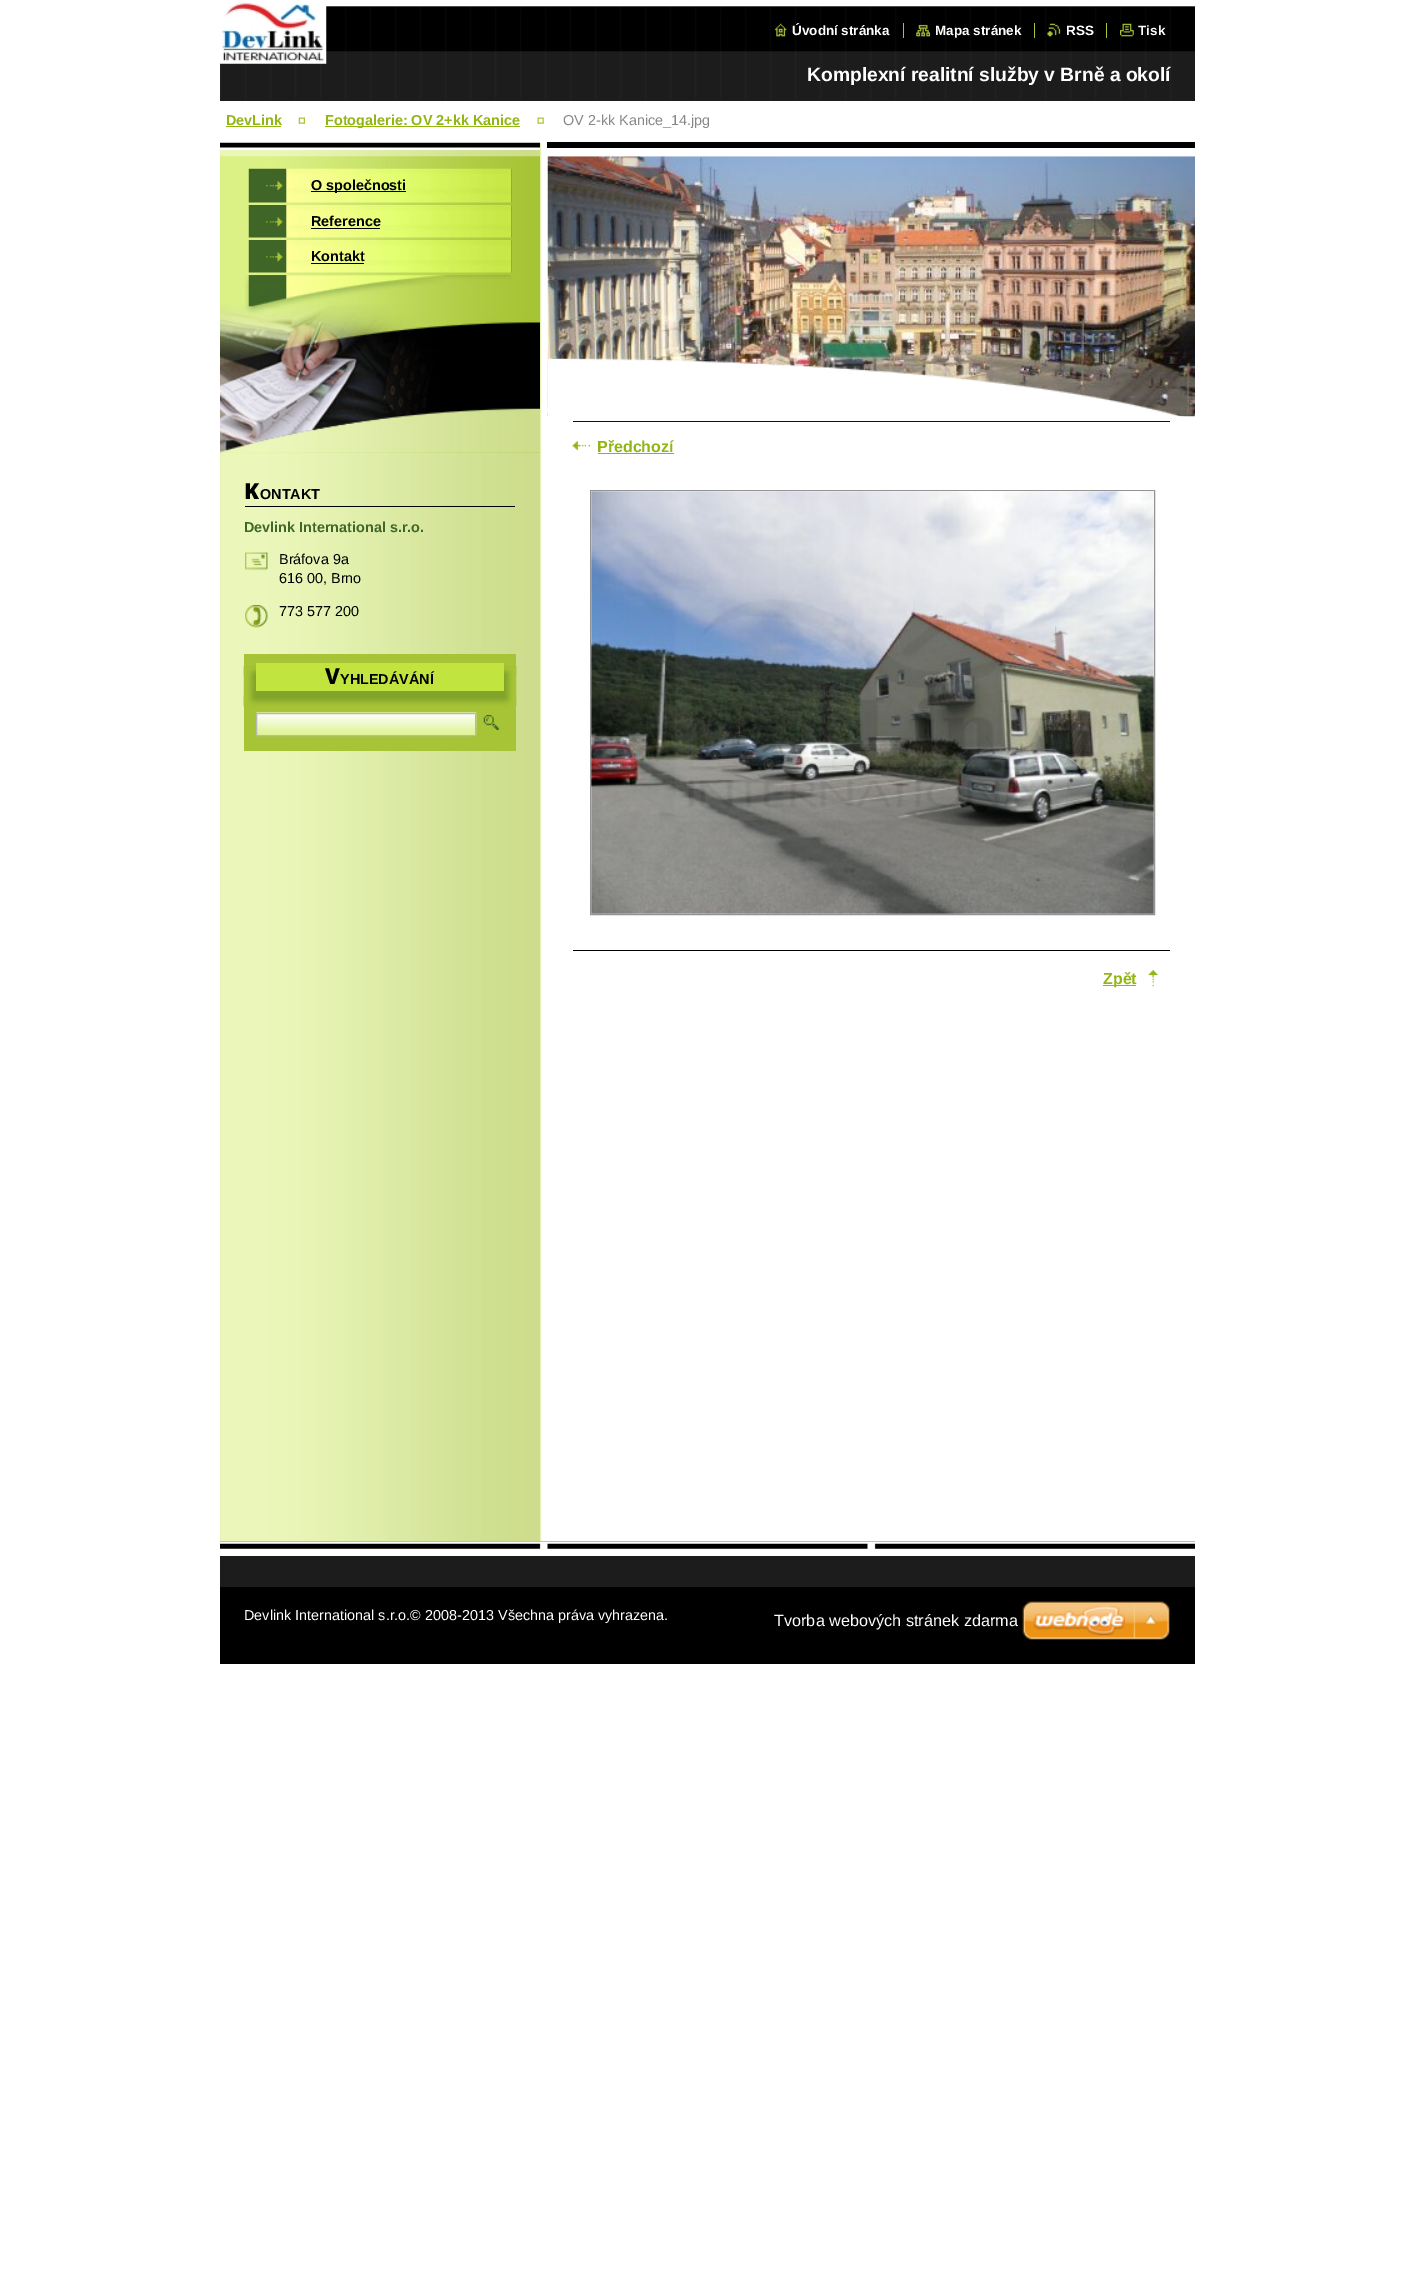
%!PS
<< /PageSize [1413 2273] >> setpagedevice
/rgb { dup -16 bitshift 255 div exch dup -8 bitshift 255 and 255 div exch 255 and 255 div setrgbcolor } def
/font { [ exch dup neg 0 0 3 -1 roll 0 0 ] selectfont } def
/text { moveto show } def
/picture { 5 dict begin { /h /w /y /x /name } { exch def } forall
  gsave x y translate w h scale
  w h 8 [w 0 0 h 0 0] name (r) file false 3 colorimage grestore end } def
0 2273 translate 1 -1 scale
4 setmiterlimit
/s1 { /LiberationSans-Bold 13.5 font 16#FFFFFF rgb } def
/s2 { /LiberationSans-Bold 19.25 font 16#FFFFFF rgb } def
/s3 { /LiberationSans-Bold 14.4 font 16#91B511 rgb } def
/s4 { /LiberationSans-Regular 14.4 font 16#888888 rgb } def
/s5 { /LiberationSans-Bold 14.4 font 16#000000 rgb } def
/s6 { /NotoSans-Black 22 font 16#000000 rgb } def
/s7 { /LiberationSans-Bold 14.4 font 16#40662A rgb } def
/s8 { /LiberationSans-Regular 14.4 font 16#000000 rgb } def
/s9 { /NotoSans-ExtraBold 22 font 16#000000 rgb } def
/s10 { /LiberationSans-Bold 16 font 16#91B511 rgb } def
/s11 { /LiberationSans-Regular 14.4 font 16#FFFFFF rgb } def
/s12 { /LiberationSans-Regular 16.25 font 16#FFFFFF rgb } def
16#FFFFFF rgb
0 0 1413 2273 rectfill
(pic1.raw) 220 143 322 1398 picture
(pic2.raw) 220 0 975 101 picture
(pic3.raw) 220 2 107 62 picture
(pic4.raw) 774 23 13 14 picture
s1
(Úvodní stránka) 792 35 text
(pic5.raw) 916 24 14 13 picture
(Mapa stránek) 935 35 text
16#A7C436 rgb
903 23 1 15 rectfill
(pic6.raw) 1047 23 14 14 picture
s1
(RSS) 1066 35 text
16#A7C436 rgb
1034 23 1 15 rectfill
(pic7.raw) 1120 23 14 14 picture
s1
(Tisk) 1138 35 text
16#A7C436 rgb
1106 23 1 15 rectfill
s2
(Komplexní realitní služby v Brně a okolí) 807 81 text
s3
(DevLink) 226 125 text
226 126 55 1 rectfill
(pic8.raw) 298 117 7 7 picture
325 126 195 1 rectfill
(Fotogalerie: OV 2+kk Kanice) 325 125 text
(pic9.raw) 537 117 7 7 picture
s4
(OV 2-kk Kanice_14.jpg) 563 125 text
(pic10.raw) 220 142 320 8 picture
(pic11.raw) 220 156 320 297 picture
(pic12.raw) 248 168 264 35 picture
(pic13.raw) 266 181 17 9 picture
16#000000 rgb
311 191 95 1 rectfill
s5
(O společnosti) 311 190 text
(pic14.raw) 248 205 264 33 picture
(pic15.raw) 266 217 17 10 picture
(Reference) 311 226 text
311 228 69 1 rectfill
(pic16.raw) 248 240 264 33 picture
(pic15.raw) 266 252 17 10 picture
(Kontakt) 311 261 text
311 263 53 1 rectfill
(pic17.raw) 220 275 320 178 picture
245 506 270 1 rectfill
s6
(K) 244 499 text
s5
(ONTAKT) 260 499 text
s7
(Devlink International s.r.o.) 244 532 text
(pic18.raw) 245 552 23 19 picture
s8
(Bráfova 9a) 279 564 text
(616 00, Brno) 279 583 text
(pic19.raw) 245 605 23 23 picture
(773 577 200) 279 616 text
16#A7C436 rgb
244 654 272 97 rectfill
16#82A42A rgb
244 666 272 31 rectfill
(pic20.raw) 243 666 274 41 picture
(pic21.raw) 243 666 274 11 picture
16#C2E43F rgb
256 663 248 28 rectfill
s9
(V) 325 684 text
s5
(YHLEDÁVÁNÍ) 340 684 text
(pic22.raw) 243 696 274 11 picture
(pic23.raw) 256 712 221 23 picture
16#B8B8B8 rgb
256.5 713.5 219 22 rectstroke
(pic24.raw) 483 715 16 15 picture
16#000000 rgb
547 142 648 6 rectfill
(pic25.raw) 547 156 648 261 picture
573 421 597 1 rectfill
(pic26.raw) 547 358 638 64 picture
(pic27.raw) 572 441 18 9 picture
s10
(Předchozí) 597 452 text
598 453 76 1 rectfill
16#939393 rgb
590.5 490.5 564 424 rectstroke
(pic28.raw) 591 491 563 423 picture
16#000000 rgb
573 950 597 1 rectfill
16#91B511 rgb
1103 985 33 1 rectfill
(Zpět) 1103 984 text
(pic29.raw) 1148 970 10 17 picture
16#000000 rgb
220 1541 975 123 rectfill
(pic30.raw) 220 1541 975 15 picture
16#1C1C1C rgb
220 1556 975 31 rectfill
s11
(Devlink International s.r.o.© 2008-2013 Všechna práva vyhrazena.) 244 1620 text
s12
(Tvorba webových stránek zdarma) 774 1626 text
(pic31.raw) 1022 1601 148 39 picture
showpage
